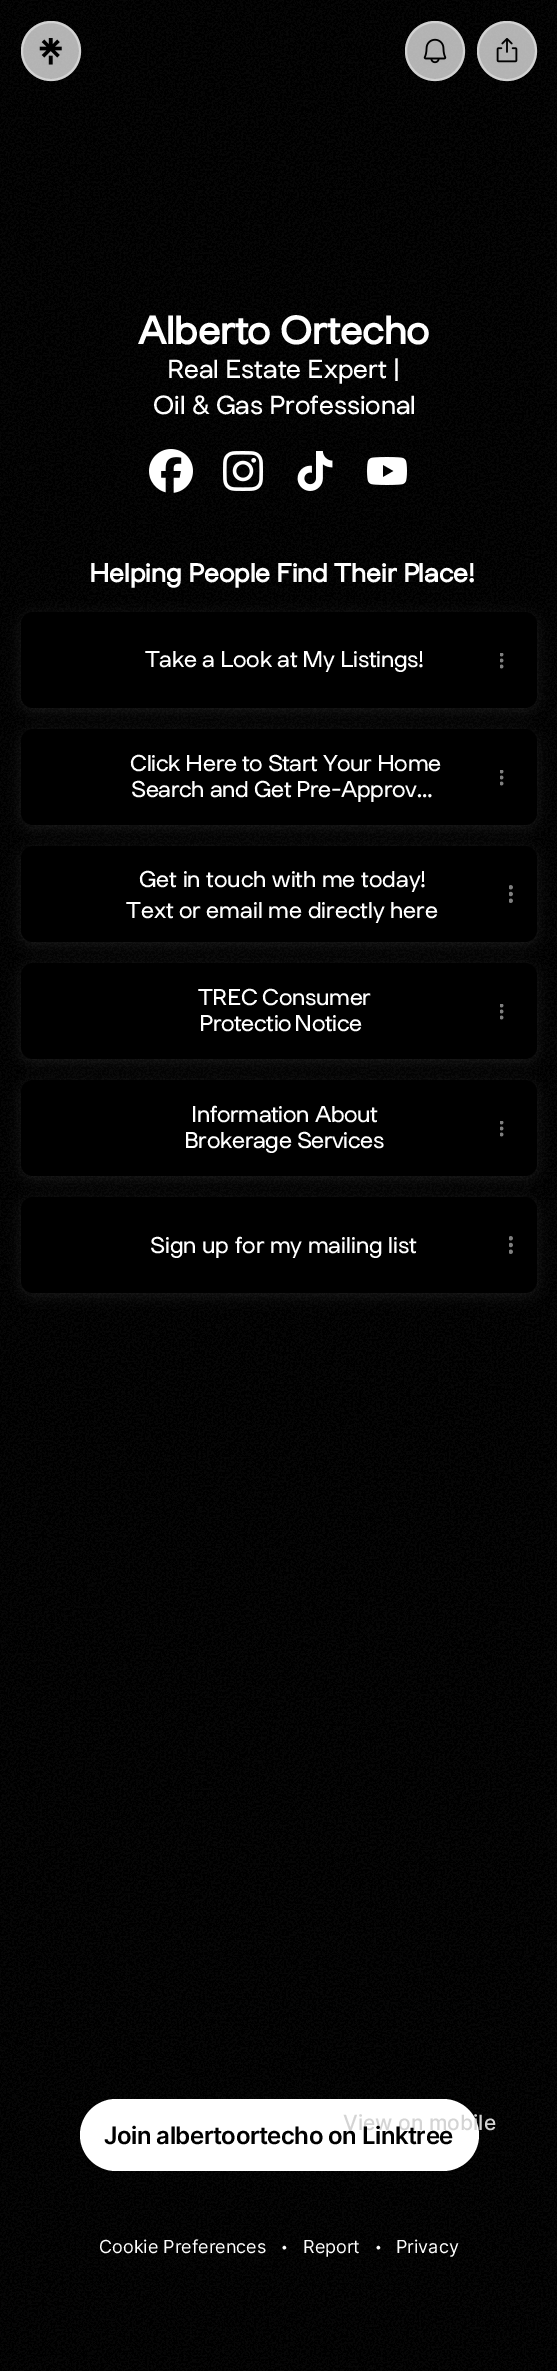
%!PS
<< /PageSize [557 2371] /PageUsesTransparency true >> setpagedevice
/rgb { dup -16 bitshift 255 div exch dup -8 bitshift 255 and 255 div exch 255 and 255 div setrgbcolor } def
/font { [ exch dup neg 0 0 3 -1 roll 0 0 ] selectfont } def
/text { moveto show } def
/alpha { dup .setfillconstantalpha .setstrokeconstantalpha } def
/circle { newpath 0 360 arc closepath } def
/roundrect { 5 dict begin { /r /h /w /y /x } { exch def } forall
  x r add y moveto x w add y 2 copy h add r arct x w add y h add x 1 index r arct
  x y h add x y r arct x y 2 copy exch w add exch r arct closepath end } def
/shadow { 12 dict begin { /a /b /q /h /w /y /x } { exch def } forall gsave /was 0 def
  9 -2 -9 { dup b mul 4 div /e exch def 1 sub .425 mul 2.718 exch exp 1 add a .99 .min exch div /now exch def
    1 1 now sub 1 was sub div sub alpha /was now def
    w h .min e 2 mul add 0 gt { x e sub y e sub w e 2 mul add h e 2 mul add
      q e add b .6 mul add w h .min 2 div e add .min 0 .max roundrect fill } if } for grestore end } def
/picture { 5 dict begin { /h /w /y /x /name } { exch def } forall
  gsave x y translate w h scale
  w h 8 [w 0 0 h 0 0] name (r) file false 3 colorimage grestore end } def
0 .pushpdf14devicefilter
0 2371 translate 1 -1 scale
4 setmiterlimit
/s1 { /Inter-Medium 21 font 16#D4D4D4 rgb } def
/s2 { /Inter-Regular 18 font 16#FFFFFF rgb } def
/s3 { /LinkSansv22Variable-Regular 24 font 16#FFFFFF rgb } def
16#000000 rgb
0 0 557 2371 rectfill
(pic4.raw) 0 0 557 2371 picture
0.7 alpha
16#FFFFFF rgb
51 51 30 circle fill
0.4 alpha
2 setlinewidth
51 51 29 circle stroke
1 alpha
(pic1.raw) 39 38 23 27 picture
0.7 alpha
435 51 30 circle fill
0.4 alpha
435 51 29 circle stroke
1 alpha
(pic2.raw) 423 38 24 26 picture
0.7 alpha
507 51 30 circle fill
0.4 alpha
507 51 29 circle stroke
1 alpha
(pic3.raw) 496 38 22 25 picture
/LinkSansv22Variable-Bold 36 font
138 344 moveto -2 0 32 (Alberto Ortecho) widthshow
/LinkSansv22Variable-Regular 24 font
167 378 moveto -1.5 0 32 (Real Estate Expert |) widthshow
153 414 moveto -1.5 0 32 (Oil & Gas Professional) widthshow
(pic5.raw) 149 449 44 44 picture
(pic6.raw) 223 451 40 40 picture
(pic7.raw) 297 451 36 40 picture
(pic8.raw) 367 457 40 28 picture
/LinkSansv22Variable-Bold 24 font
89 582 moveto -1.5 0 32 (Helping People Find Their Place!) widthshow
21 615 516 96 12 6 0.08 shadow
16#000000 rgb
21 612 516 96 12 roundrect fill
/LinkSansv22Variable-Regular 21 font
16#FFFFFF rgb
145 667 moveto -1.25 0 32 -0.3 0 (Take a Look at My Listings!) awidthshow
(pic9.raw) 500 653 4 16 picture
21 732 516 96 12 6 0.08 shadow
16#000000 rgb
21 729 516 96 12 roundrect fill
16#FFFFFF rgb
130 771 moveto -1.25 0 32 -0.3 0 (Click Here to Start Your Home) awidthshow
131 797 moveto -1.25 0 32 -0.3 0 (Search and Get Pre-Approv…) awidthshow
(pic9.raw) 500 770 4 16 picture
21 849 516 96 12 6 0.08 shadow
16#000000 rgb
21 846 516 96 12 roundrect fill
16#FFFFFF rgb
139 887 moveto -1.25 0 32 (Get in touch with me today!) widthshow
126 918 moveto -1.25 0 32 (Text or email me directly here) widthshow
(pic10.raw) 509 885 4 18 picture
21 966 516 96 12 6 0.08 shadow
16#000000 rgb
21 963 516 96 12 roundrect fill
16#FFFFFF rgb
198 1005 moveto -1.25 0 32 -0.3 0 (TREC Consumer) awidthshow
199 1031 moveto -0.3 0 (Protectio) ashow
294 1031 moveto -0.3 0 (Notice) ashow
(pic9.raw) 500 1004 4 16 picture
21 1083 516 96 12 6 0.08 shadow
16#000000 rgb
21 1080 516 96 12 roundrect fill
16#FFFFFF rgb
191 1122 moveto -1.25 0 32 -0.3 0 (Information About) awidthshow
184 1148 moveto -1.25 0 32 -0.3 0 (Brokerage Services) awidthshow
(pic9.raw) 500 1121 4 16 picture
21 1200 516 96 12 6 0.08 shadow
16#000000 rgb
21 1197 516 96 12 roundrect fill
16#FFFFFF rgb
150 1253 moveto -1.25 0 32 (Sign up for my mailing list) widthshow
(pic10.raw) 509 1236 4 18 picture
80 2099 399 72 36 roundrect fill
s1
(View on mobile) 343 2130 text
/Inter-SemiBold 24 font
16#000000 rgb
104 2144 moveto -0.5 0 (Join albertoortecho on Linktree) ashow
s2
(Cookie Preferences) 99 2253 text
s3
(·) 281 2256 text
s2
(Report) 303 2253 text
s3
(·) 375 2256 text
s2
(Privacy) 396 2253 text
.poppdf14devicefilter showpage
